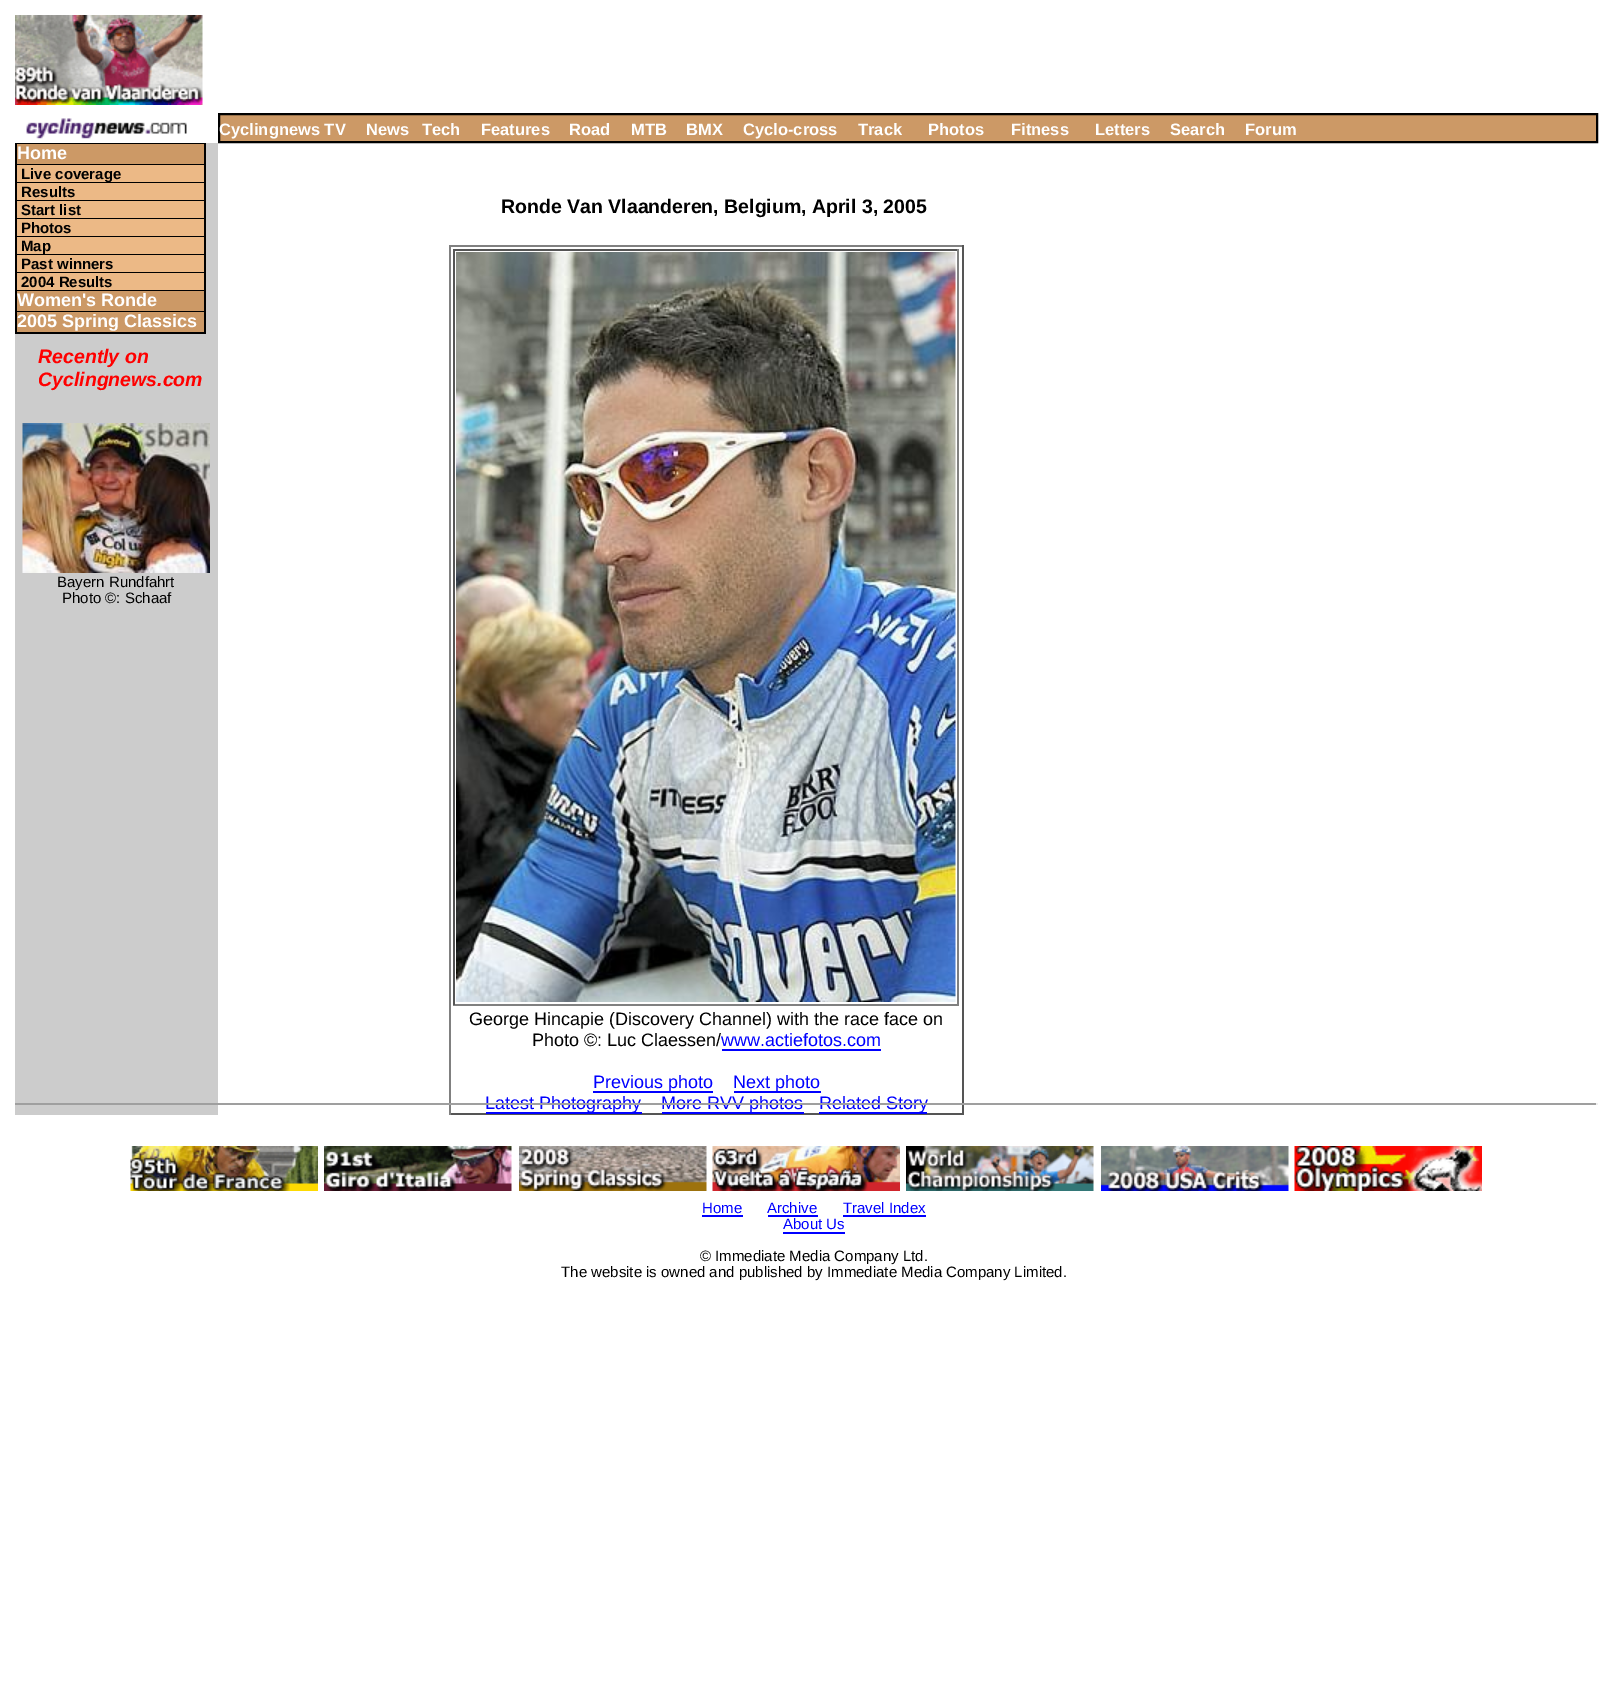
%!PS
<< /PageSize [1604 1698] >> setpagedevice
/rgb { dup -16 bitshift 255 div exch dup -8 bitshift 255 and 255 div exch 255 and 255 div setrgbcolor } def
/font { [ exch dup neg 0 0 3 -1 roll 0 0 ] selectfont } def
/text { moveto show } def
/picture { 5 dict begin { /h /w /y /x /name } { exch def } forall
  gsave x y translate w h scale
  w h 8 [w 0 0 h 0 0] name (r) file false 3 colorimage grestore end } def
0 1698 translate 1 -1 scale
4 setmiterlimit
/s1 { /LiberationSans-Bold 16.5 font 16#FFFFFF rgb } def
/s2 { /LiberationSans-Bold 18 font 16#FFFFFF rgb } def
/s3 { /LiberationSans-Bold 15 font 16#000000 rgb } def
/s4 { /LiberationSans-BoldItalic 19.5 font 16#FF0000 rgb } def
/s5 { /LiberationSans-Regular 15 font 16#000000 rgb } def
/s6 { /LiberationSans-Bold 19.5 font 16#000000 rgb } def
/s7 { /LiberationSans-Regular 18 font 16#000000 rgb } def
/s8 { /LiberationSans-Regular 18 font 16#0000FF rgb } def
/s9 { /LiberationSans-Regular 15 font 16#0000FF rgb } def
16#FFFFFF rgb
0 0 1604 1698 rectfill
(pic1.raw) 15 15 188 90 picture
(pic2.raw) 26 118 161 21 picture
16#CC9966 rgb
219 114 moveto 1597 114 lineto 1597 142 lineto 219 142 lineto closepath gsave fill grestore
16#000000 rgb
2 setlinewidth
stroke
s1
(Cyclingnews TV) 219 135 text
(News) 366 135 text
(Tech) 422 135 text
(Features) 481 135 text
(Road) 569 135 text
(MTB) 631 135 text
(BMX) 686 135 text
(Cyclo-cross) 743 135 text
(Track) 858 135 text
(Photos) 928 135 text
(Fitness) 1011 135 text
(Letters) 1095 135 text
(Search) 1170 135 text
(Forum) 1245 135 text
16#CCCCCC rgb
15 143 203 972 rectfill
16#000000 rgb
15 143 191 1 rectfill
16#CC9966 rgb
17 144 187 20 rectfill
16#000000 rgb
204 144 2 189 rectfill
15 164 191 1 rectfill
15 144 2 21 rectfill
s2
(Home) 17 159 text
16#ECB986 rgb
17 165 187 17 rectfill
16#000000 rgb
15 182 191 1 rectfill
15 165 2 18 rectfill
s3
(Live coverage) 21 179 text
16#ECB986 rgb
17 183 187 17 rectfill
16#000000 rgb
15 200 191 1 rectfill
15 183 2 18 rectfill
(Results) 21 197 text
16#ECB986 rgb
17 201 187 17 rectfill
16#000000 rgb
15 218 191 1 rectfill
15 201 2 18 rectfill
(Start list) 21 215 text
16#ECB986 rgb
17 219 187 17 rectfill
16#000000 rgb
15 236 191 1 rectfill
15 219 2 18 rectfill
(Photos) 21 233 text
16#ECB986 rgb
17 237 187 17 rectfill
16#000000 rgb
15 254 191 1 rectfill
15 237 2 18 rectfill
(Map) 21 251 text
16#ECB986 rgb
17 255 187 17 rectfill
16#000000 rgb
15 272 191 1 rectfill
15 255 2 18 rectfill
(Past winners) 21 269 text
16#ECB986 rgb
17 273 187 17 rectfill
16#000000 rgb
15 290 191 1 rectfill
15 273 2 18 rectfill
(2004 Results) 21 287 text
16#CC9966 rgb
17 291 187 20 rectfill
16#000000 rgb
15 311 191 1 rectfill
15 291 2 21 rectfill
s2
(Women's Ronde) 17 306 text
16#CC9966 rgb
17 312 187 20 rectfill
16#000000 rgb
15 332 191 2 rectfill
15 312 2 21 rectfill
s2
(2005 Spring Classics) 17 327 text
s4
(Recently on) 38 363 text
(Cyclingnews.com) 38 386 text
(pic3.raw) 22 423 188 150 picture
s5
(Bayern Rundfahrt) 57 587 text
(Photo ©: Schaaf) 62 603 text
s6
(Ronde Van Vlaanderen, Belgium, April 3, 2005) 501 213 text
16#808080 rgb
449 245 514 2 rectfill
16#555555 rgb
962 245 2 870 rectfill
449 1113 514 2 rectfill
16#808080 rgb
449 245 2 870 rectfill
16#555555 rgb
453 249 506 2 rectfill
16#808080 rgb
957 249 2 756 rectfill
453 1004 506 2 rectfill
16#555555 rgb
453 249 2 756 rectfill
(pic4.raw) 456 252 500 750 picture
s7
(George Hincapie \(Discovery Channel\) with the race face on) 469 1025 text
(Photo ©: Luc Claessen/) 532 1046 text
s8
(www.actiefotos.com) 721 1046 text
722 1049 159 2 rectfill
593 1091 120 2 rectfill
(Previous photo) 593 1088 text
734 1091 87 2 rectfill
(Next photo) 733 1088 text
486 1112 156 2 rectfill
(Latest Photography) 485 1109 text
662 1112 142 2 rectfill
(More RVV photos) 661 1109 text
819 1112 108 2 rectfill
(Related Story) 819 1109 text
16#9F9F9F rgb
15 1103 1583 2 rectfill
16#EEEEEE rgb
1596 1103 2 2 rectfill
(pic5.raw) 130 1146 188 45 picture
(pic6.raw) 324 1146 188 45 picture
(pic7.raw) 519 1146 188 45 picture
(pic8.raw) 712 1146 188 45 picture
(pic9.raw) 906 1146 188 45 picture
(pic10.raw) 1101 1146 188 45 picture
(pic11.raw) 1294 1146 188 45 picture
s9
(Home) 702 1213 text
702 1215 41 2 rectfill
(Archive) 767 1213 text
768 1215 50 2 rectfill
(Travel Index) 843 1213 text
843 1215 83 2 rectfill
(About Us) 783 1229 text
783 1232 62 2 rectfill
s5
(© Immediate Media Company Ltd.) 700 1261 text
(The website is owned and published by Immediate Media Company Limited.) 561 1277 text
showpage
